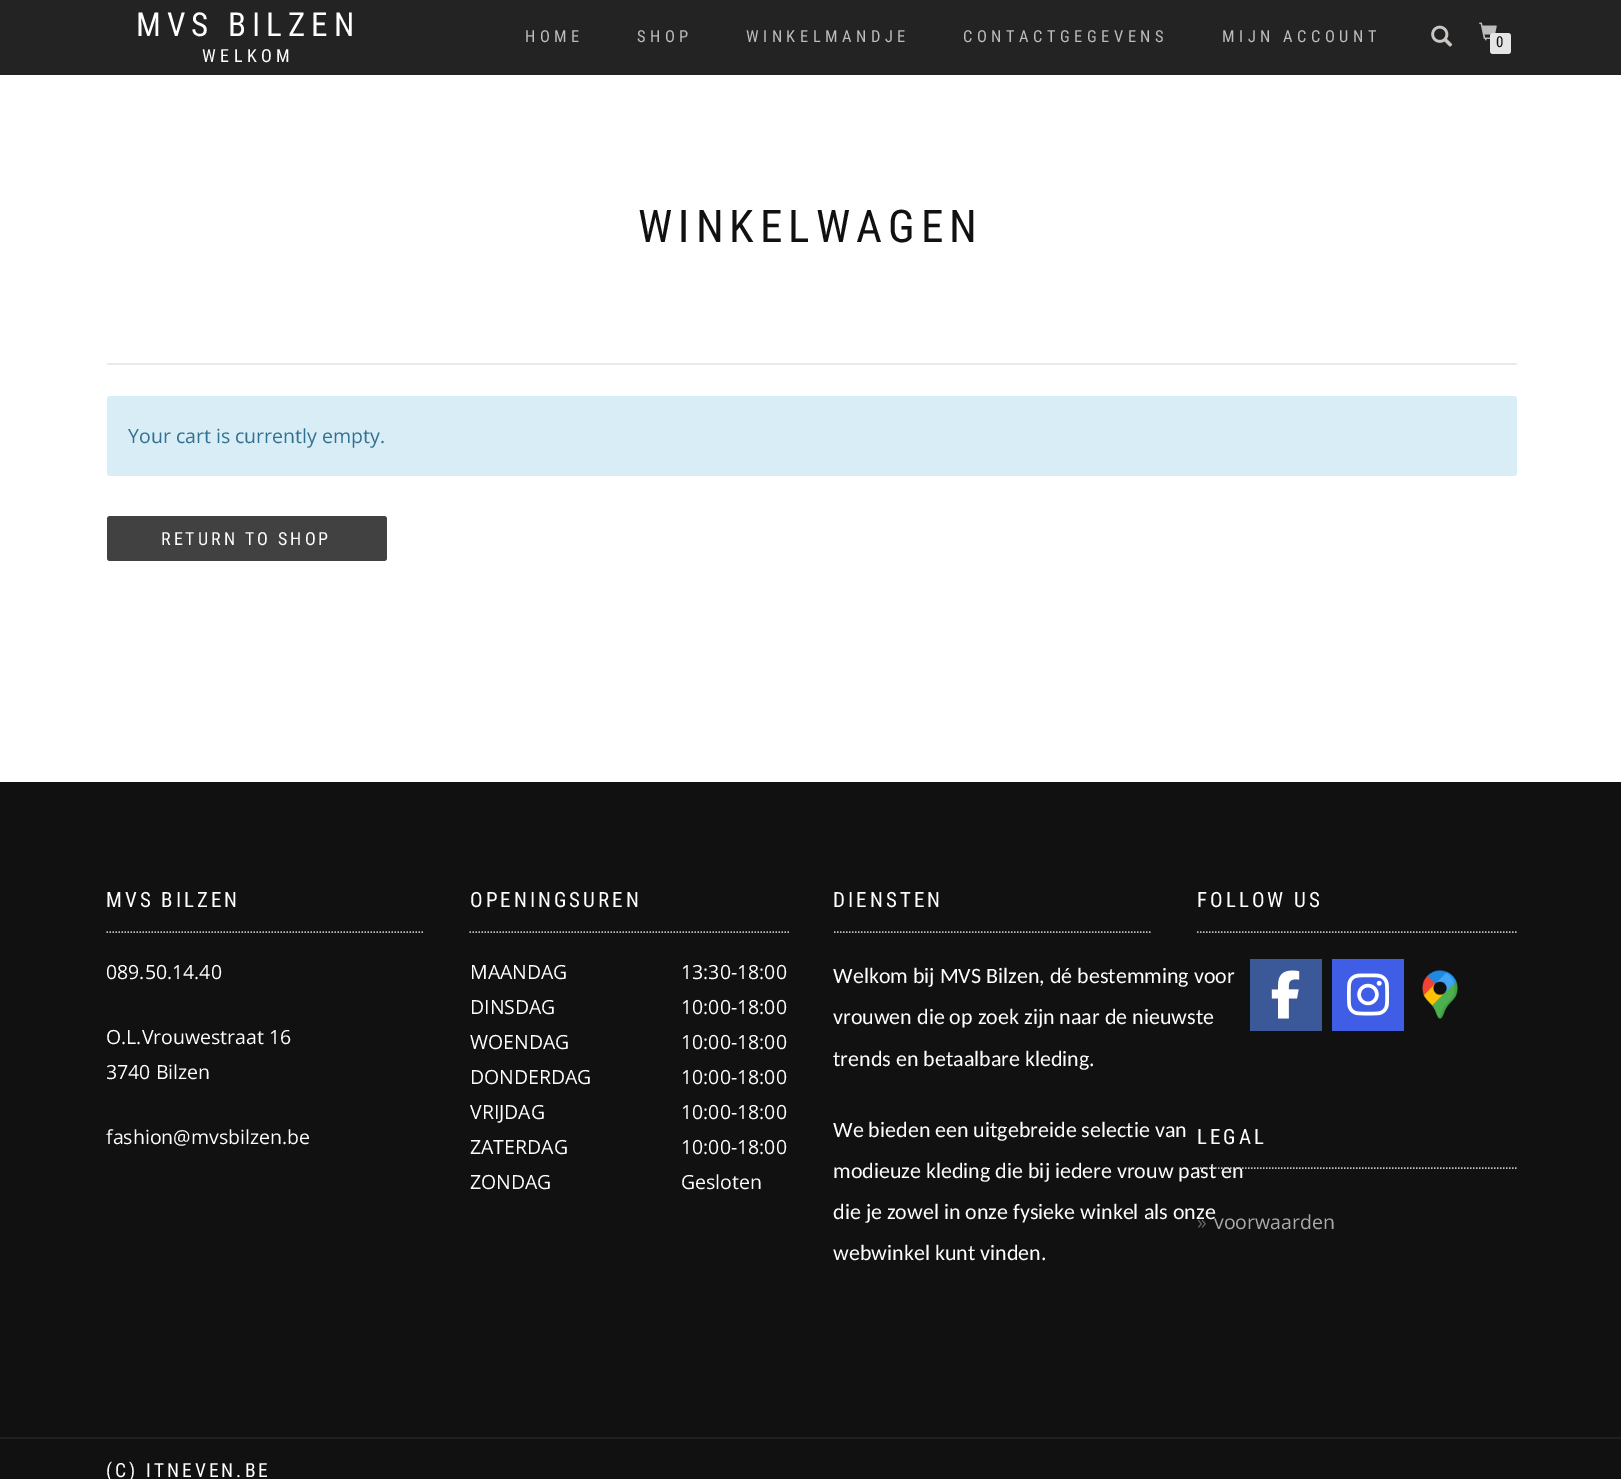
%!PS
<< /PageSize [1621 1479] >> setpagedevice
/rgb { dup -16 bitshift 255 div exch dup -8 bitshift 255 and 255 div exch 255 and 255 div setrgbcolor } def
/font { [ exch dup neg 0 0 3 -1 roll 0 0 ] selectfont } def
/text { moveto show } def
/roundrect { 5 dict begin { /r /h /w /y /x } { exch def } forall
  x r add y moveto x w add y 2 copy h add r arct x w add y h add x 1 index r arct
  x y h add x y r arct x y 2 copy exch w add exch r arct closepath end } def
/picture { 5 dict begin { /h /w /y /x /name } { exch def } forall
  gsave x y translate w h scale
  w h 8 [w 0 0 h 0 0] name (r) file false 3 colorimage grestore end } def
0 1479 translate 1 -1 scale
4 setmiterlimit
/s1 { /RobotoCondensed-Regular 15 font 16#111111 rgb } def
/s2 { /OpenSans-Regular 19.5 font 16#31708F rgb } def
/s3 { /OpenSans-Regular 19.5 font 16#FFFFFF rgb } def
/s4 { /Carlito-Regular 22 font 16#FFFFFF rgb } def
/s5 { /OpenSans-Regular 19.5 font 16#666666 rgb } def
/s6 { /OpenSans-Regular 19.5 font 16#AAAAAA rgb } def
16#FFFFFF rgb
0 0 1621 1479 rectfill
16#232323 rgb
0 0 1621 75 rectfill
/RobotoCondensed-Regular 33 font
16#FFFFFF rgb
136 36 moveto 6 0 (MVS BILZEN) ashow
/RobotoCondensed-Regular 18 font
202 62 moveto 4.5 0 (WELKOM) ashow
/RobotoCondensed-Regular 16.5 font
16#BDBDBD rgb
525 42 moveto 4.5 0 (HOME) ashow
637 42 moveto 4.5 0 (SHOP) ashow
746 42 moveto 4.5 0 (WINKELMANDJE) ashow
963 42 moveto 4.5 0 (CONTACTGEGEVENS) ashow
1222 42 moveto 4.5 0 (MIJN ACCOUNT) ashow
(pic1.raw) 1431 25 22 22 picture
(pic2.raw) 1479 22 18 19 picture
16#E5E5E5 rgb
1490 33 21 21 3 roundrect fill
s1
(0) 1496 47 text
/RobotoCondensed-Regular 45 font
638 242 moveto 6 0 (WINKELWAGEN) ashow
16#EAEAEA rgb
107 363 1410 2 rectfill
16#D9EDF7 rgb
107 396 1410 80 3 roundrect fill
s2
(Your cart is currently empty.) 128 443 text
16#414141 rgb
107 516 280 45 3 roundrect fill
/RobotoCondensed-Regular 18 font
16#FFFFFF rgb
161 545 moveto 3 0 (RETURN TO SHOP) ashow
16#111111 rgb
0 782 1621 655 rectfill
16#C2C2C2 rgb
1.5 setlinewidth
[1.5 1.5] 0 setdash
106.5 932 moveto 424.5 932 lineto stroke
/RobotoCondensed-Regular 21 font
16#FFFFFF rgb
106 907 moveto 3 0 (MVS BILZEN) ashow
s3
(089.50.14.40) 106 979 text
(O.L.Vrouwestraat 16) 106 1044 text
(3740 Bilzen) 106 1079 text
(fashion@mvsbilzen.be) 106 1144 text
16#C2C2C2 rgb
469.5 932 moveto 789 932 lineto stroke
/RobotoCondensed-Regular 21 font
16#FFFFFF rgb
470 907 moveto 3 0 (OPENINGSUREN) ashow
s3
(MAANDAG) 470 979 text
(DINSDAG) 470 1014 text
(WOENDAG) 470 1049 text
(DONDERDAG) 470 1084 text
(VRIJDAG) 470 1119 text
(ZATERDAG) 470 1154 text
(ZONDAG) 470 1189 text
(13:30-18:00) 681 979 text
(10:00-18:00) 681 1014 text
(10:00-18:00) 681 1049 text
(10:00-18:00) 681 1084 text
(10:00-18:00) 681 1119 text
(10:00-18:00) 681 1154 text
(Gesloten) 681 1189 text
16#C2C2C2 rgb
834 932 moveto 1152 932 lineto stroke
/RobotoCondensed-Regular 21 font
16#FFFFFF rgb
833 907 moveto 3 0 (DIENSTEN) ashow
s4
(Welkom bij MVS Bilzen, dé bestemming voor) 833 983 text
(vrouwen die op zoek zijn naar de nieuwste) 833 1024 text
(trends en betaalbare kleding.) 833 1066 text
(We bieden een uitgebreide selectie van) 833 1137 text
(modieuze kleding die bij iedere vrouw past en) 833 1178 text
(die je zowel in onze fysieke winkel als onze) 833 1219 text
(webwinkel kunt vinden.) 833 1260 text
16#C2C2C2 rgb
1197 932 moveto 1516.5 932 lineto stroke
/RobotoCondensed-Regular 21 font
16#FFFFFF rgb
1197 907 moveto 3 0 (FOLLOW US) ashow
16#3B5998 rgb
1250 959 72 72 rectfill
(pic3.raw) 1271 970 29 49 picture
16#405DE6 rgb
1332 959 72 72 rectfill
(pic4.raw) 1347 973 42 43 picture
(pic5.raw) 1422 970 36 49 picture
16#C2C2C2 rgb
1197 1168 moveto 1516.5 1168 lineto stroke
16#FFFFFF rgb
1197 1144 moveto 3 0 (LEGAL) ashow
s5
(») 1197 1229 text
s6
(voorwaarden) 1214 1229 text
16#111111 rgb
0 1439 1621 40 rectfill
16#202020 rgb
0 1437 1621 2 rectfill
/RobotoCondensed-Regular 19.5 font
16#FFFFFF rgb
106 1477 moveto 3 0 (\(C\) ITNEVEN.BE) ashow
showpage
